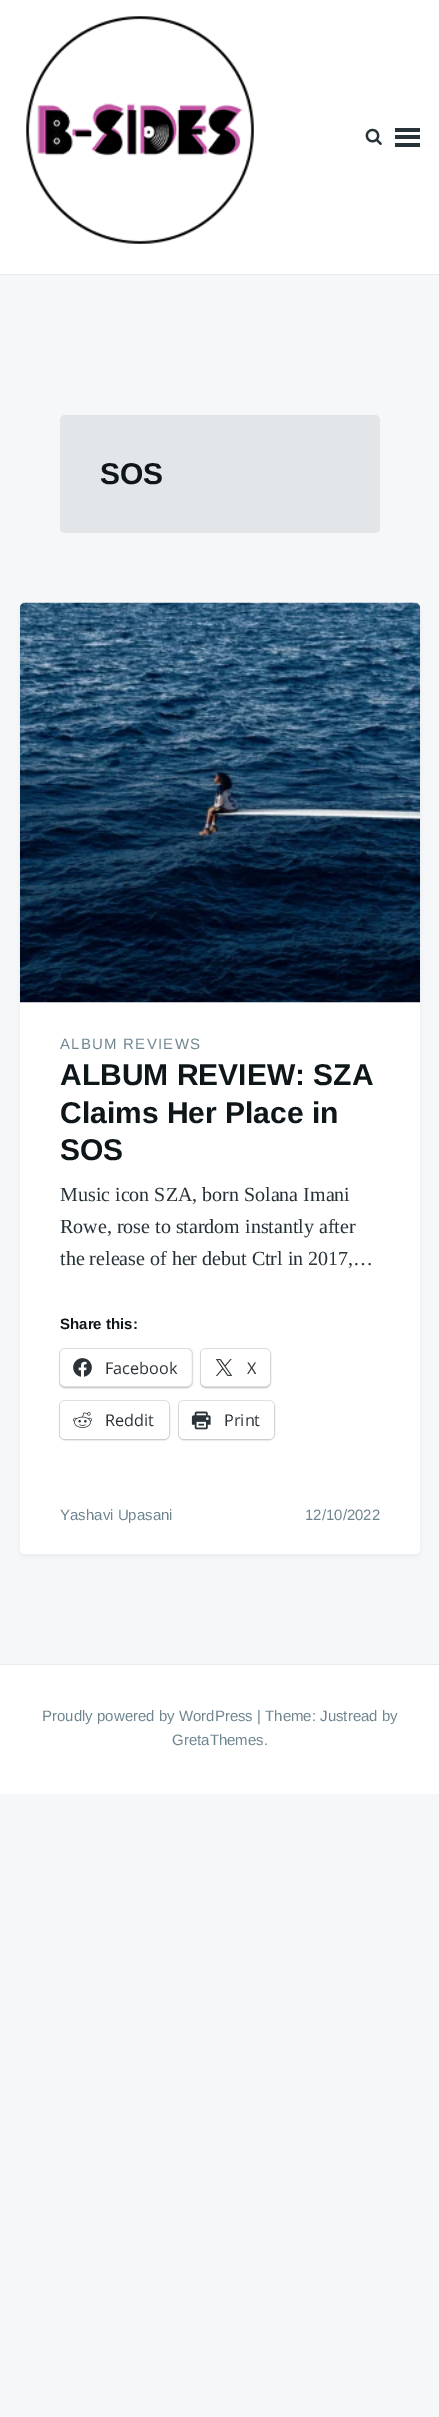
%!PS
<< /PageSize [439 2417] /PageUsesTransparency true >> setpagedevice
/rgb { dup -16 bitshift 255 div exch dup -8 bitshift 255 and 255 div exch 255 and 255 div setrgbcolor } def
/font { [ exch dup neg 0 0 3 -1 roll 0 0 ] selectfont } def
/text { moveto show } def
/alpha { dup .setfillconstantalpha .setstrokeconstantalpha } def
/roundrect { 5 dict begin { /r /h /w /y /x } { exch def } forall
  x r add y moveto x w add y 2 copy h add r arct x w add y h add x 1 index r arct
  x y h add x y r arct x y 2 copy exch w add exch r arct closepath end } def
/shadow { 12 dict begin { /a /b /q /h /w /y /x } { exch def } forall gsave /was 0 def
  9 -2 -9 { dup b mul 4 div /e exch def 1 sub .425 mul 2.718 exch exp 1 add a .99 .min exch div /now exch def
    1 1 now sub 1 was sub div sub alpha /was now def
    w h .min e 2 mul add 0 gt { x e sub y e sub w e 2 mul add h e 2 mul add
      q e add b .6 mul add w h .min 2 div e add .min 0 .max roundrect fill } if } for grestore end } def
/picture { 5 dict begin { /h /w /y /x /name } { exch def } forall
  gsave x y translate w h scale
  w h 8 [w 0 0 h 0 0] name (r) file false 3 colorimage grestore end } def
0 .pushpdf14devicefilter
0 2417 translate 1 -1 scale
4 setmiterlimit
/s1 { /LiberationSans-Bold 30 font 16#0F161A rgb } def
/s2 { /LiberationSerif-Regular 20 font 16#263238 rgb } def
/s3 { /LiberationSans-Bold 15 font 16#0F161A rgb } def
/s4 { /OpenSans-Regular 16.25 font 16#2C3338 rgb } def
/s5 { /LiberationSans-Regular 15 font 16#6F8590 rgb } def
16#F5F7F8 rgb
0 0 439 2417 rectfill
16#FFFFFF rgb
0 0 439 274 rectfill
16#E9EBEB rgb
0 274 439 1 rectfill
(pic1.raw) 26 16 228 228 picture
(pic2.raw) 365 128 17 17 picture
16#263238 rgb
395 128 25 4 rectfill
395 135 25 4 rectfill
395 143 25 4 rectfill
16#E2E6E9 rgb
60 415 320 118 5 roundrect fill
s1
(SOS) 100 484 text
16#263238 rgb
20 605 400 951 5 2.5 0.05 shadow
16#FFFFFF rgb
20 603 400 951 5 roundrect fill
(pic3.raw) 20 602 400 401 picture
/LiberationSans-Regular 15 font
16#6F8590 rgb
60 1049 moveto 1.25 0 (ALBUM REVIEWS) ashow
s1
(ALBUM REVIEW: SZA) 60 1085 text
(Claims Her Place in) 60 1123 text
(SOS) 60 1160 text
s2
(Music icon SZA, born Solana Imani) 60 1201 text
(Rowe, rose to stardom instantly after) 60 1233 text
(the release of her debut Ctrl in 2017,…) 60 1265 text
s3
(Share this:) 60 1329 text
16#E0E0E0 rgb
59.5 1348.5 133 39 5.5 roundrect stroke
16#000000 rgb
60 1350 131 38 5 1 0.12 shadow
16#FFFFFF rgb
60 1349 131 37 5 roundrect fill
(pic4.raw) 73 1358 19 19 picture
s4
(Facebook) 105 1374 text
16#E0E0E0 rgb
200.5 1348.5 70 39 5.5 roundrect stroke
16#000000 rgb
201 1350 69 38 5 1 0.12 shadow
16#FFFFFF rgb
201 1349 69 37 5 roundrect fill
(pic5.raw) 215 1359 18 17 picture
s4
(X) 247 1374 text
16#E0E0E0 rgb
59.5 1400.5 110 39 5.5 roundrect stroke
16#000000 rgb
60 1403 109 37 5 1 0.12 shadow
16#FFFFFF rgb
60 1401 109 38 5 roundrect fill
(pic6.raw) 73 1412 19 16 picture
s4
(Reddit) 105 1426 text
16#E0E0E0 rgb
178.5 1400.5 96 39 5.5 roundrect stroke
16#000000 rgb
179 1403 95 37 5 1 0.12 shadow
16#FFFFFF rgb
179 1401 95 38 5 roundrect fill
(pic7.raw) 191 1411 20 19 picture
s4
(Print) 224 1426 text
s5
(Yashavi Upasani) 60 1520 text
(12/10/2022) 305 1520 text
16#FFFFFF rgb
0 1665 439 129 rectfill
16#E9EBEB rgb
0 1664 439 1 rectfill
s5
(Proudly powered by WordPress | Theme: Justread by) 42 1721 text
(GretaThemes.) 172 1745 text
.poppdf14devicefilter showpage
